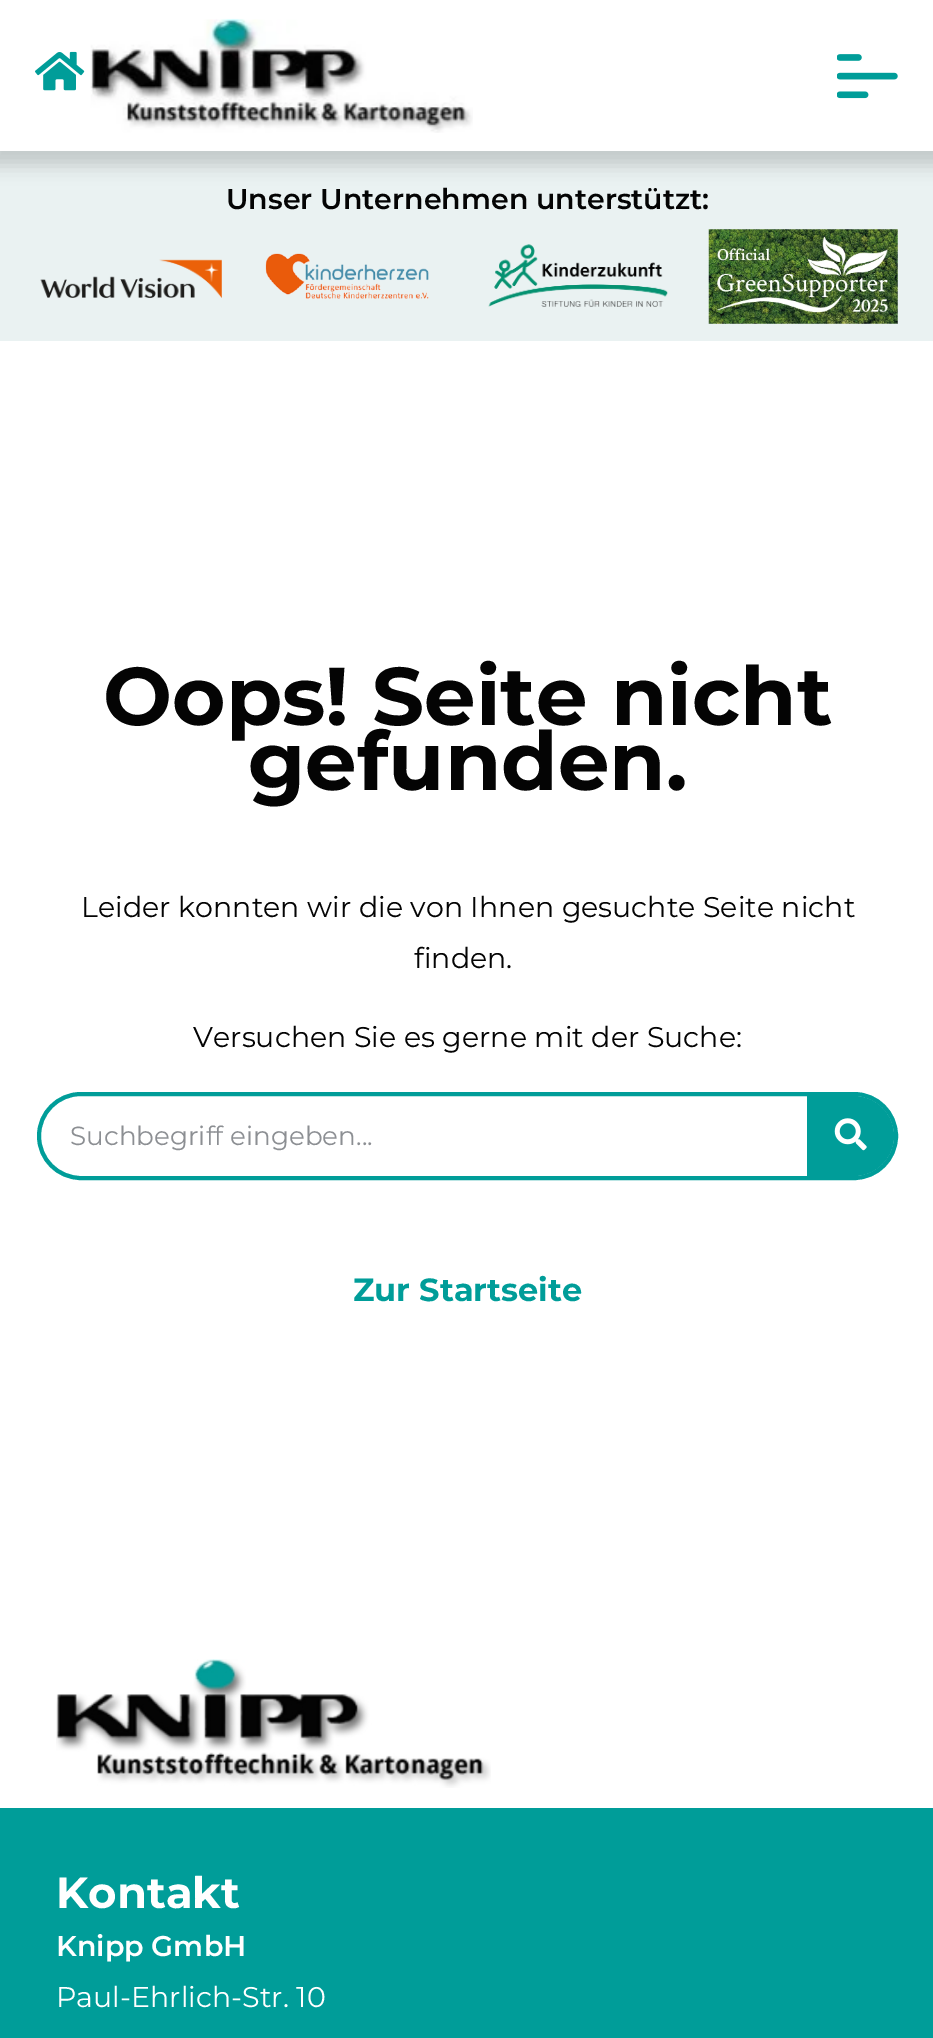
%!PS
<< /PageSize [933 2038] /PageUsesTransparency true >> setpagedevice
/rgb { dup -16 bitshift 255 div exch dup -8 bitshift 255 and 255 div exch 255 and 255 div setrgbcolor } def
/font { [ exch dup neg 0 0 3 -1 roll 0 0 ] selectfont } def
/text { moveto show } def
/alpha { dup .setfillconstantalpha .setstrokeconstantalpha } def
/roundrect { 5 dict begin { /r /h /w /y /x } { exch def } forall
  x r add y moveto x w add y 2 copy h add r arct x w add y h add x 1 index r arct
  x y h add x y r arct x y 2 copy exch w add exch r arct closepath end } def
/shadow { 12 dict begin { /a /b /q /h /w /y /x } { exch def } forall gsave /was 0 def
  9 -2 -9 { dup b mul 4 div /e exch def 1 sub .425 mul 2.718 exch exp 1 add a .99 .min exch div /now exch def
    1 1 now sub 1 was sub div sub alpha /was now def
    w h .min e 2 mul add 0 gt { x e sub y e sub w e 2 mul add h e 2 mul add
      q e add b .6 mul add w h .min 2 div e add .min 0 .max roundrect fill } if } for grestore end } def
/picture { 5 dict begin { /h /w /y /x /name } { exch def } forall
  gsave x y translate w h scale
  w h 8 [w 0 0 h 0 0] name (r) file false 3 colorimage grestore end } def
0 .pushpdf14devicefilter
0 2038 translate 1 -1 scale
4 setmiterlimit
/s1 { /Montserrat-SemiBold 28.5 font 16#040404 rgb } def
/s2 { /Montserrat-Bold 81.75 font 16#040404 rgb } def
/s3 { /Montserrat-Regular 28.5 font 16#040404 rgb } def
/s4 { /Montserrat-Regular 26.25 font 16#8C8F93 rgb } def
/s5 { /Montserrat-Bold 32 font 16#009D99 rgb } def
/s6 { /Montserrat-Bold 43.5 font 16#FFFFFF rgb } def
/s7 { /Montserrat-SemiBold 28.5 font 16#FFFFFF rgb } def
/s8 { /Montserrat-Regular 28.5 font 16#FFFFFF rgb } def
16#FFFFFF rgb
0 0 933 2038 rectfill
16#EAF2F2 rgb
0 151 933 190 rectfill
16#000000 rgb
-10 -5 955 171 0 9 0.16 shadow
16#FFFFFF rgb
0 0 933 151 rectfill
(pic1.raw) 35 51 50 40 picture
(pic2.raw) 90 18 383 115 picture
(pic3.raw) 837 54 61 45 picture
s1
(Unser Unternehmen unterstützt:) 226 209 text
(pic4.raw) 40 259 182 40 picture
(pic5.raw) 265 253 164 46 picture
(pic6.raw) 488 244 180 63 picture
(pic7.raw) 708 229 190 95 picture
s2
(Oops! Seite nicht) 103 725 text
(gefunden.) 248 790 text
s3
(Leider konnten wir die von Ihnen gesuchte Seite nicht) 81 917 text
(finden.) 414 968 text
(Versuchen Sie es gerne mit der Suche:) 193 1047 text
16#009D99 rgb
4 setlinewidth
39 1094 857 84 42 roundrect stroke
s4
(Suchbegriff eingeben...) 70 1145 text
16#009D99 rgb
807 1096 moveto 854 1096 lineto 876 1096 894 1114 894 1136 curveto 894 1158 876 1176 854 1176 curveto 807 1176 lineto closepath fill
(pic8.raw) 834 1118 33 33 picture
s5
(Zur Startseite) 353 1301 text
(pic9.raw) 56 1659 435 129 picture
0 1808 933 230 rectfill
s6
(Kontakt) 56 1908 text
s7
(Knipp GmbH) 56 1956 text
s8
(Paul-Ehrlich-Str. 10) 56 2007 text
.poppdf14devicefilter showpage
